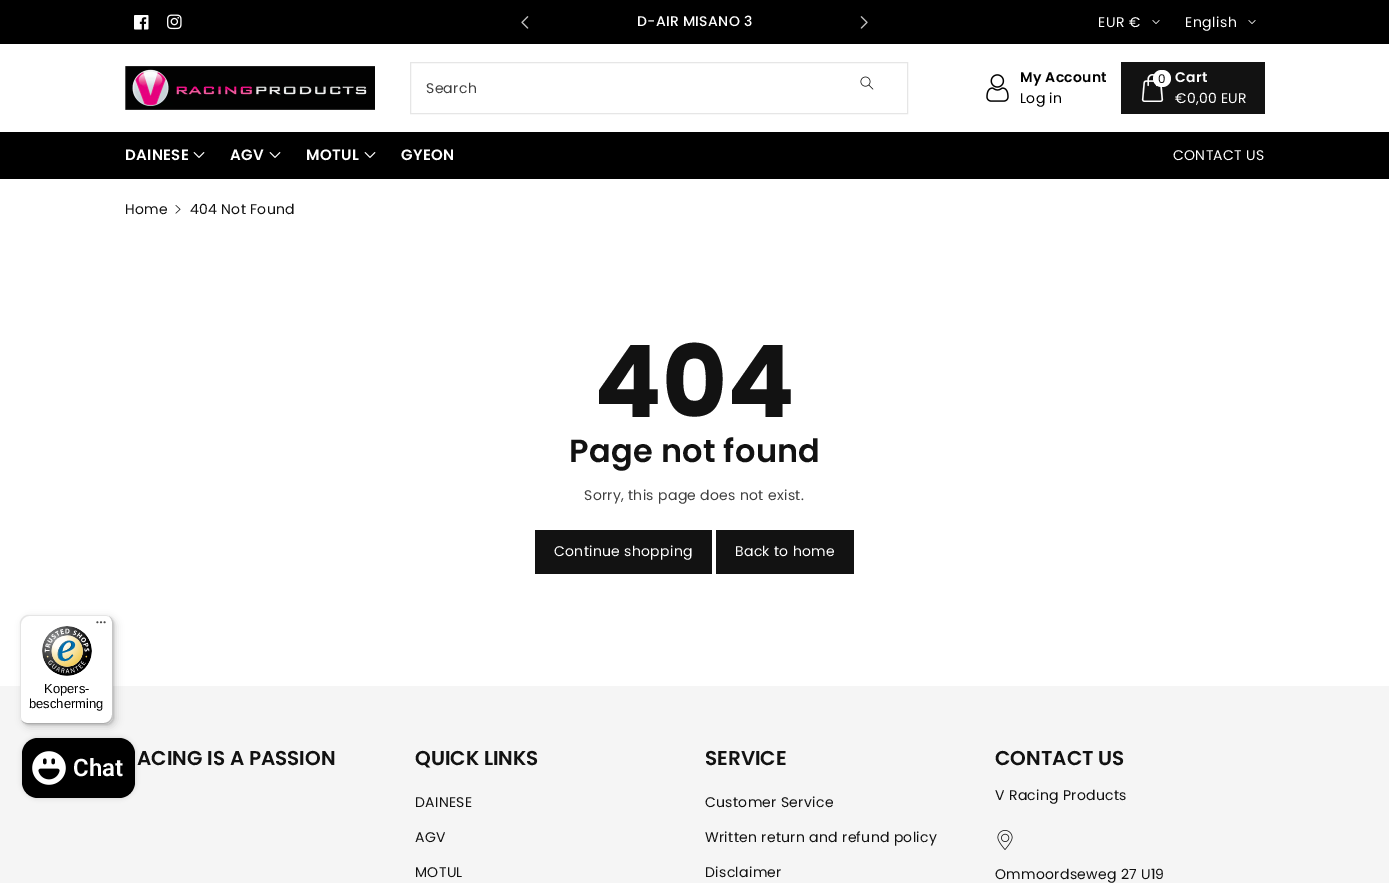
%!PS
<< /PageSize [1389 883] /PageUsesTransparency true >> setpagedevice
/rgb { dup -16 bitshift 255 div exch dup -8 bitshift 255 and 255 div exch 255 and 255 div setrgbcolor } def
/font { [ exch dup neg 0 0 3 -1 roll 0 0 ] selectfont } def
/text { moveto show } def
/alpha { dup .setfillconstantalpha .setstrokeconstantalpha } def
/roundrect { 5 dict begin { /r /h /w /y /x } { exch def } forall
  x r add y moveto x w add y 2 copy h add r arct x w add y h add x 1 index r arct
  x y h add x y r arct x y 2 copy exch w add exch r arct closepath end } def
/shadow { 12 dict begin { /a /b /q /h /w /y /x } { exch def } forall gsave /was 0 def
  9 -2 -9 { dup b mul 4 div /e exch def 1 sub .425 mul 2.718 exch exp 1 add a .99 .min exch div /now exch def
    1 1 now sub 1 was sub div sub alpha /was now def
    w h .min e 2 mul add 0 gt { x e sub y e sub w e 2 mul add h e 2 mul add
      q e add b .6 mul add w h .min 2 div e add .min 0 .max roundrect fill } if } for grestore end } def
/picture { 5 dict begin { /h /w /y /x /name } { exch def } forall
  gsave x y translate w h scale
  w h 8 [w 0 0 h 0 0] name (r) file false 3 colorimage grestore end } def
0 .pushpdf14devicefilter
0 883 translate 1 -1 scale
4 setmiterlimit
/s1 { /LiberationSans-Regular 13 font 16#000000 rgb } def
/s2 { /Roboto-SemiBold 24 font 16#FFFFFF rgb } def
/s3 { /Poppins-SemiBold 20 font 16#121212 rgb } def
16#FFFFFF rgb
0 0 1389 883 rectfill
16#000000 rgb
0 0 1389 44 rectfill
(pic1.raw) 134 15 15 15 picture
(pic2.raw) 167 14 15 16 picture
(pic3.raw) 521 16 8 13 picture
/Poppins-Medium 14 font
16#FFFFFF rgb
637 26 moveto 0.3 0 (D-AIR MISANO 3) ashow
(pic4.raw) 860 16 8 13 picture
/Poppins-Regular 14 font
1098 27 moveto 0.5 0 (EUR €) ashow
(pic5.raw) 1152 20 8 4 picture
1185 27 moveto 0.5 0 (English) ashow
(pic5.raw) 1248 20 8 4 picture
(pic6.raw) 125 66 250 44 picture
(pic7.raw) 860 76 14 14 picture
16#E6E6E6 rgb
410.5 62.5 497 51 rectstroke
16#404040 rgb
426 93 moveto 0.3 0 (Search) ashow
(pic8.raw) 986 74 23 28 picture
/Poppins-SemiBold 14 font
16#000000 rgb
1020 82 moveto 0.3 0 (My Account) ashow
/Poppins-Regular 14 font
1020 103 moveto 0.3 0 (Log in) ashow
16#121212 rgb
1121 62 144 52 rectfill
(pic9.raw) 1141 74 23 28 picture
/Poppins-SemiBold 14 font
16#FFFFFF rgb
1175 82 moveto 0.3 0 (Cart) ashow
/Poppins-Regular 14 font
1175 103 moveto 0.3 0 (€0,00 EUR) ashow
1153 70 18 17 8.5 roundrect fill
/Poppins-Regular 12 font
16#121212 rgb
1158 83 moveto 0.3 0 (0) ashow
16#000000 rgb
0 132 1389 47 rectfill
/Poppins-SemiBold 15 font
16#FFFFFF rgb
125 160 moveto 0.3 0 (DAINESE) ashow
(pic10.raw) 193 152 12 6 picture
230 160 moveto 0.3 0 (AGV) ashow
(pic10.raw) 269 152 12 6 picture
306 160 moveto 0.3 0 (MOTUL) ashow
(pic10.raw) 364 152 12 6 picture
401 160 moveto 0.3 0 (GYEON) ashow
/Poppins-Regular 14 font
1173 160 moveto 0.3 0 (CONTACT US) ashow
16#121212 rgb
125 214 moveto 0.3 0 (Home) ashow
(pic11.raw) 175 205 6 9 picture
190 214 moveto 0.3 0 (404 Not Found) ashow
/Poppins-Bold 100 font
594 417 moveto 0.3 0 (404) ashow
/Poppins-SemiBold 32 font
569 462 moveto 0.3 0 (Page not found) ashow
/Poppins-Regular 14 font
16#404040 rgb
584 500 moveto 0.3 0 (Sorry, this page does not exist.) ashow
16#121212 rgb
535 530 177 44 rectfill
16#FFFFFF rgb
554 556 moveto 0.3 0 (Continue shopping) ashow
16#121212 rgb
716 530 138 44 rectfill
16#FFFFFF rgb
735 556 moveto 0.3 0 (Back to home) ashow
16#F5F5F5 rgb
0 686 1389 197 rectfill
16#000000 rgb
22 738 113 60 16 2.5 0.15 shadow
22 738 113 60 16 roundrect fill
23 618 93 109 8 4 0.15 shadow
21 616 93 109 8 1 0.15 shadow
16#FFFFFF rgb
20 615 93 109 8 roundrect fill
16#E5E5E5 rgb
29 616 moveto 106 616 lineto 108 616 110 617 112 619 curveto 110 617 108 615 105 615 curveto 28 615 lineto 24 615 20 619 20 623 curveto 20 716 lineto 20 719 22 721 24 723 curveto 22 721 21 719 21 717 curveto 21 624 lineto 21 620 25 616 29 616 curveto closepath fill
0.2 alpha
16#000000 rgb
21 720 moveto 23 722 25 724 28 724 curveto 105 724 lineto 109 724 113 720 113 716 curveto 113 623 lineto 113 620 111 618 109 616 curveto 111 618 112 620 112 622 curveto 112 715 lineto 112 719 108 723 104 723 curveto 27 723 lineto 25 723 23 722 21 720 curveto closepath fill
16#323232 rgb
22 721 moveto 23 723 26 724 28 724 curveto 105 724 lineto 109 724 113 720 113 716 curveto 113 623 lineto 113 621 112 618 110 617 curveto 111 618 112 620 112 622 curveto 112 715 lineto 112 720 109 723 104 723 curveto 27 723 lineto 25 723 23 722 22 721 curveto closepath fill
0.3 alpha
16#FFFFFF rgb
104 724 moveto 105 724 lineto 109 724 113 720 113 716 curveto 113 623 lineto 113 621 112 618 110 617 curveto 111 618 112 620 112 622 curveto 112 716 lineto 112 720 109 724 104 724 curveto closepath fill
1 alpha
(pic12.raw) 96 621 10 3 picture
(pic13.raw) 42 626 50 50 picture
s1
(Kopers-) 44 693 text
(bescherming) 29 708 text
(pic14.raw) 32 751 34 34 picture
s2
(Chat) 73 776 text
s3
(ACING IS A PASSION) 137 765 text
(QUICK LINKS) 415 765 text
/Poppins-Regular 14 font
415 807 moveto 0.3 0 (DAINESE) ashow
415 842 moveto 0.3 0 (AGV) ashow
415 877 moveto 0.3 0 (MOTUL) ashow
s3
(SERVICE) 705 765 text
/Poppins-Regular 14 font
705 807 moveto 0.3 0 (Customer Service) ashow
705 842 moveto 0.3 0 (Written return and refund policy) ashow
705 877 moveto 0.3 0 (Disclaimer) ashow
s3
(CONTACT US) 995 765 text
/Poppins-Regular 14 font
995 800 moveto 0.3 0 (V Racing Products) ashow
(pic15.raw) 997 830 16 20 picture
995 879 moveto 0.3 0 (Ommoordseweg 27 U19) ashow
.poppdf14devicefilter showpage
